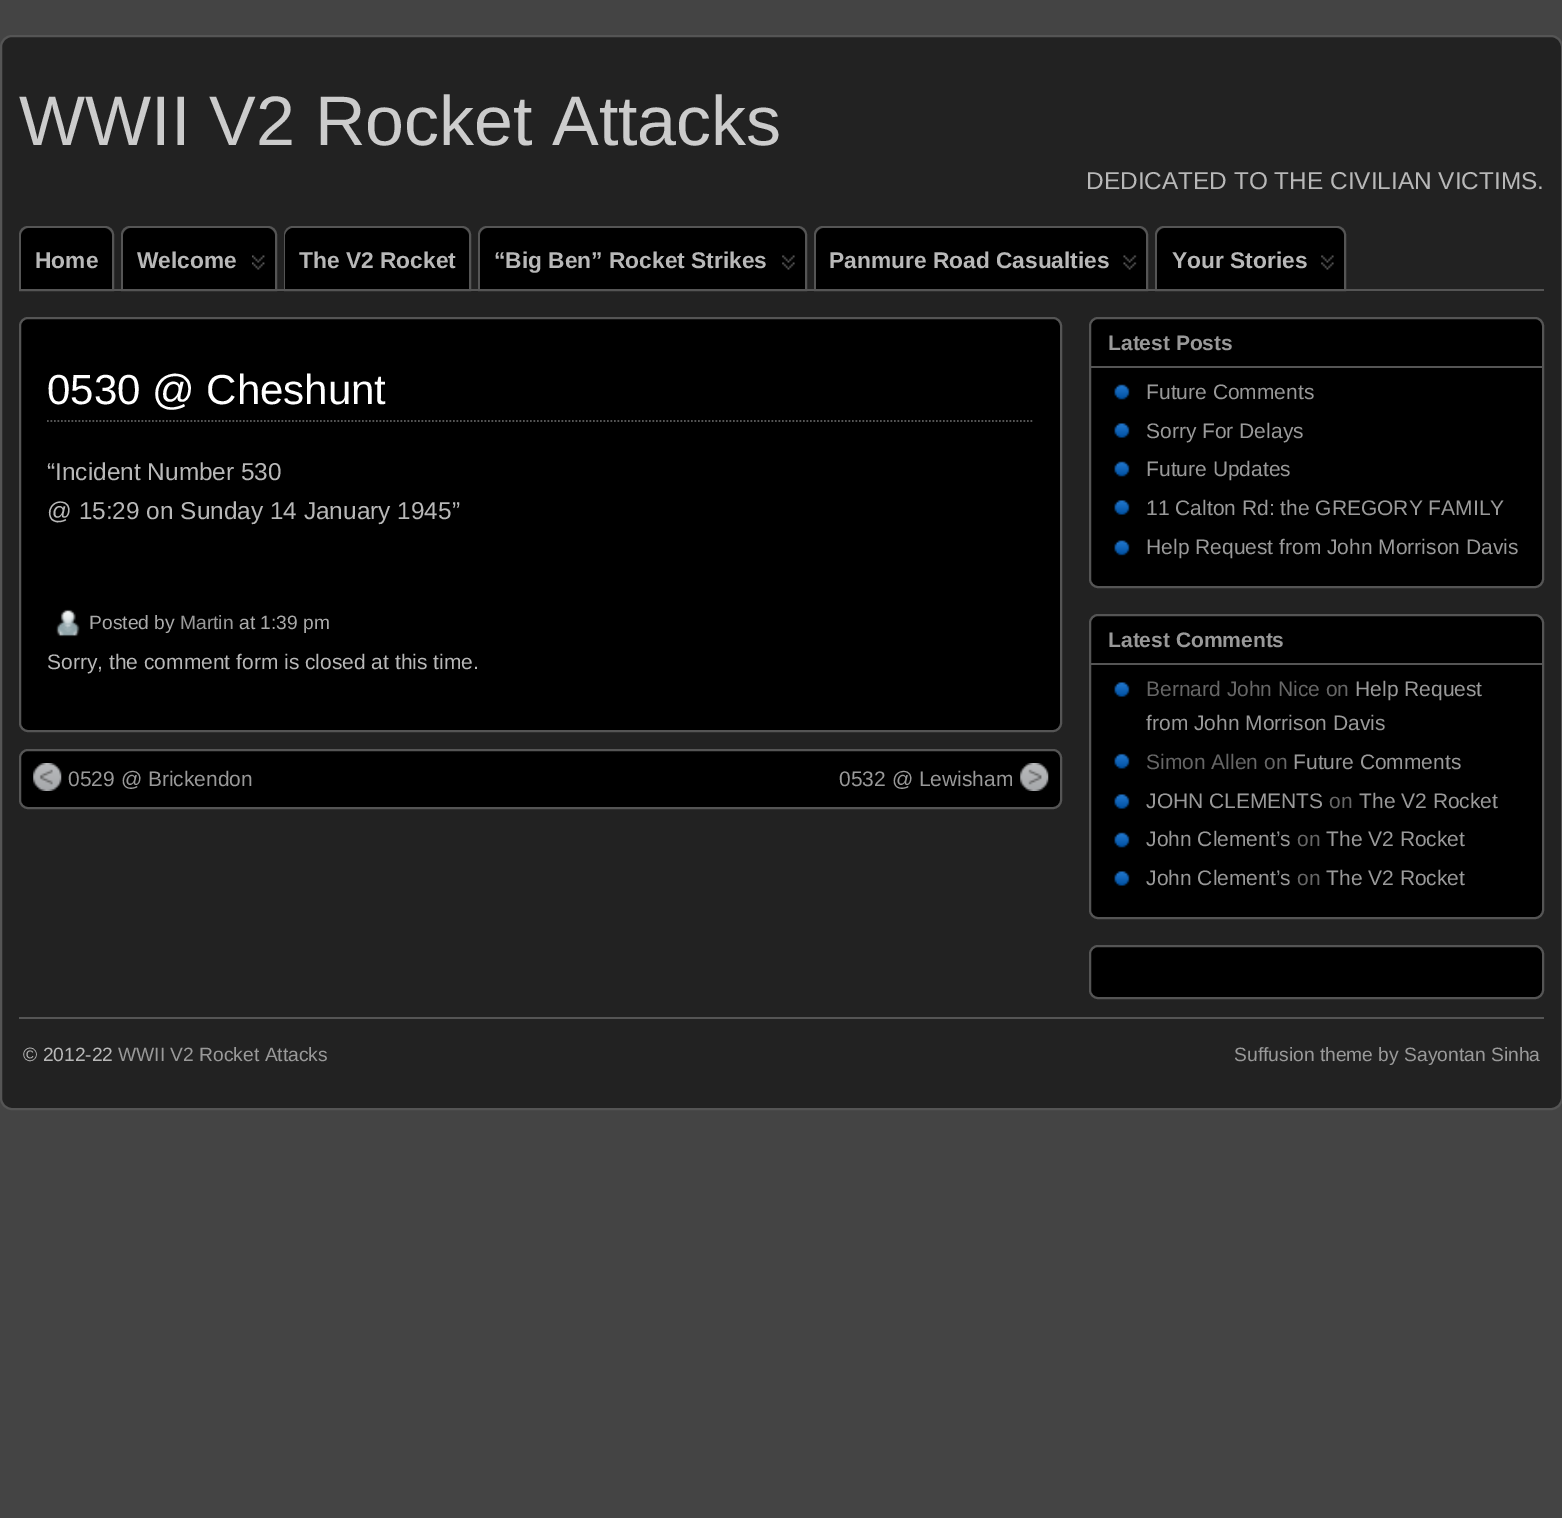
%!PS
<< /PageSize [1562 1518] >> setpagedevice
/rgb { dup -16 bitshift 255 div exch dup -8 bitshift 255 and 255 div exch 255 and 255 div setrgbcolor } def
/font { [ exch dup neg 0 0 3 -1 roll 0 0 ] selectfont } def
/text { moveto show } def
/roundrect { 5 dict begin { /r /h /w /y /x } { exch def } forall
  x r add y moveto x w add y 2 copy h add r arct x w add y h add x 1 index r arct
  x y h add x y r arct x y 2 copy exch w add exch r arct closepath end } def
/picture { 5 dict begin { /h /w /y /x /name } { exch def } forall
  gsave x y translate w h scale
  w h 8 [w 0 0 h 0 0] name (r) file false 3 colorimage grestore end } def
0 1518 translate 1 -1 scale
4 setmiterlimit
/s1 { /LiberationSans-Regular 70 font 16#CCCCCC rgb } def
/s2 { /LiberationSans-Regular 24.4 font 16#B8B8B8 rgb } def
/s3 { /LiberationSans-Bold 22.75 font 16#B8B8B8 rgb } def
/s4 { /LiberationSans-Regular 42 font 16#FFFFFF rgb } def
/s5 { /LiberationSans-Regular 19.25 font 16#AAAAAA rgb } def
/s6 { /LiberationSans-Regular 19.25 font 16#999999 rgb } def
/s7 { /LiberationSans-Regular 21 font 16#B8B8B8 rgb } def
/s8 { /LiberationSans-Regular 21 font 16#999999 rgb } def
/s9 { /LiberationSans-Bold 21 font 16#999999 rgb } def
/s10 { /LiberationSans-Regular 21 font 16#666666 rgb } def
/s11 { /LiberationSans-Regular 19.25 font 16#B8B8B8 rgb } def
16#444444 rgb
0 0 1562 1518 rectfill
16#222222 rgb
1 36 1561 1073 11 roundrect gsave fill grestore
16#555555 rgb
2 setlinewidth
stroke
s1
(WWII V2 Rocket Attacks) 19 145 text
s2
(DEDICATED TO THE CIVILIAN VICTIMS.) 1086 189 text
16#555555 rgb
114 289 1430 2 rectfill
28 227 moveto 105 227 lineto 109.5 227 113 230.5 113 235 curveto 113 290 lineto 20 290 lineto 20 235 lineto 20 230.5 23.5 227 28 227 curveto closepath stroke
16#000000 rgb
30 228 moveto 103 228 lineto 108 228 112 232 112 237 curveto 112 289 lineto 21 289 lineto 21 237 lineto 21 232 25 228 30 228 curveto closepath fill
s3
(Home) 35 268 text
16#555555 rgb
130 227 moveto 268 227 lineto 272.5 227 276 230.5 276 235 curveto 276 290 lineto 122 290 lineto 122 235 lineto 122 230.5 125.5 227 130 227 curveto closepath stroke
16#000000 rgb
132 228 moveto 266 228 lineto 271 228 275 232 275 237 curveto 275 289 lineto 123 289 lineto 123 237 lineto 123 232 127 228 132 228 curveto closepath fill
s3
(Welcome) 137 268 text
(pic1.raw) 252 255 13 15 picture
16#555555 rgb
293 227 moveto 462 227 lineto 466.5 227 470 230.5 470 235 curveto 470 290 lineto 285 290 lineto 285 235 lineto 285 230.5 288.5 227 293 227 curveto closepath stroke
16#000000 rgb
294 228 moveto 460 228 lineto 465 228 469 232 469 237 curveto 469 289 lineto 285 289 lineto 285 237 lineto 285 232 289 228 294 228 curveto closepath fill
s3
(The V2 Rocket) 299 268 text
16#555555 rgb
487 227 moveto 798 227 lineto 802.5 227 806 230.5 806 235 curveto 806 290 lineto 479 290 lineto 479 235 lineto 479 230.5 482.5 227 487 227 curveto closepath stroke
16#000000 rgb
489 228 moveto 796 228 lineto 801 228 805 232 805 237 curveto 805 289 lineto 480 289 lineto 480 237 lineto 480 232 484 228 489 228 curveto closepath fill
s3
(“Big Ben” Rocket Strikes) 494 268 text
(pic2.raw) 782 255 13 15 picture
16#555555 rgb
823 227 moveto 1139 227 lineto 1143.5 227 1147 230.5 1147 235 curveto 1147 290 lineto 815 290 lineto 815 235 lineto 815 230.5 818.5 227 823 227 curveto closepath stroke
16#000000 rgb
825 228 moveto 1137 228 lineto 1142 228 1146 232 1146 237 curveto 1146 289 lineto 816 289 lineto 816 237 lineto 816 232 820 228 825 228 curveto closepath fill
s3
(Panmure Road Casualties) 829 268 text
(pic3.raw) 1123 255 14 15 picture
16#555555 rgb
1164 227 moveto 1337 227 lineto 1341.5 227 1345 230.5 1345 235 curveto 1345 290 lineto 1156 290 lineto 1156 235 lineto 1156 230.5 1159.5 227 1164 227 curveto closepath stroke
16#000000 rgb
1166 228 moveto 1335 228 lineto 1340 228 1344 232 1344 237 curveto 1344 289 lineto 1157 289 lineto 1157 237 lineto 1157 232 1161 228 1166 228 curveto closepath fill
s3
(Your Stories) 1172 268 text
(pic2.raw) 1321 255 13 15 picture
16#000000 rgb
20 318 1041 413 8 roundrect gsave fill grestore
16#555555 rgb
stroke
1.8 setlinewidth
[1.75 1.75] 0 setdash
47 421 moveto 1034 421 lineto stroke
s4
(0530 @ Cheshunt) 47 404 text
s2
(“Incident Number 530) 47 480 text
(@ 15:29 on Sunday 14 January 1945”) 47 519 text
(pic4.raw) 56 609 24 28 picture
s5
(Posted by) 89 629 text
s6
(Martin) 180 629 text
s5
(at 1:39 pm) 239 629 text
s7
(Sorry, the comment form is closed at this time.) 47 669 text
16#000000 rgb
20 750 1041 58 8 roundrect gsave fill grestore
16#555555 rgb
2 setlinewidth
[] 0 setdash
stroke
(pic5.raw) 33 763 29 28 picture
s8
(0529 @ Brickendon) 68 786 text
(0532 @ Lewisham) 839 786 text
(pic6.raw) 1020 763 29 28 picture
16#000000 rgb
1090 318 453 269 8 roundrect gsave fill grestore
16#555555 rgb
stroke
1090 366 452 2 rectfill
s9
(Latest Posts) 1108 350 text
(pic7.raw) 1114 384 16 16 picture
s8
(Future Comments) 1146 399 text
(pic8.raw) 1114 423 16 15 picture
(Sorry For Delays) 1146 438 text
(pic7.raw) 1114 461 16 16 picture
(Future Updates) 1146 476 text
(pic8.raw) 1114 500 16 15 picture
(11 Calton Rd: the GREGORY FAMILY) 1146 515 text
(pic9.raw) 1114 540 16 16 picture
(Help Request from John Morrison Davis) 1146 554 text
16#000000 rgb
1090 615 453 303 8 roundrect gsave fill grestore
16#555555 rgb
stroke
1090 663 452 2 rectfill
s9
(Latest Comments) 1108 647 text
(pic8.raw) 1114 682 16 15 picture
s10
(Bernard John Nice on) 1146 696 text
s8
(Help Request) 1355 696 text
(from John Morrison Davis) 1146 730 text
(pic10.raw) 1114 753 16 16 picture
s10
(Simon Allen on) 1146 769 text
s8
(Future Comments) 1293 769 text
(pic8.raw) 1114 794 16 15 picture
(JOHN CLEMENTS) 1146 808 text
s10
(on) 1329 808 text
s8
(The V2 Rocket) 1359 808 text
(pic7.raw) 1114 832 16 16 picture
(John Clement’s) 1146 846 text
s10
(on) 1297 846 text
s8
(The V2 Rocket) 1326 846 text
(pic8.raw) 1114 871 16 15 picture
(John Clement’s) 1146 885 text
s10
(on) 1297 885 text
s8
(The V2 Rocket) 1326 885 text
16#000000 rgb
1090 946 453 52 8 roundrect gsave fill grestore
16#555555 rgb
stroke
19 1017 1525 2 rectfill
s11
(© 2012-22) 23 1061 text
s6
(WWII V2 Rocket Attacks) 118 1061 text
(Suffusion theme by Sayontan Sinha) 1234 1061 text
showpage
